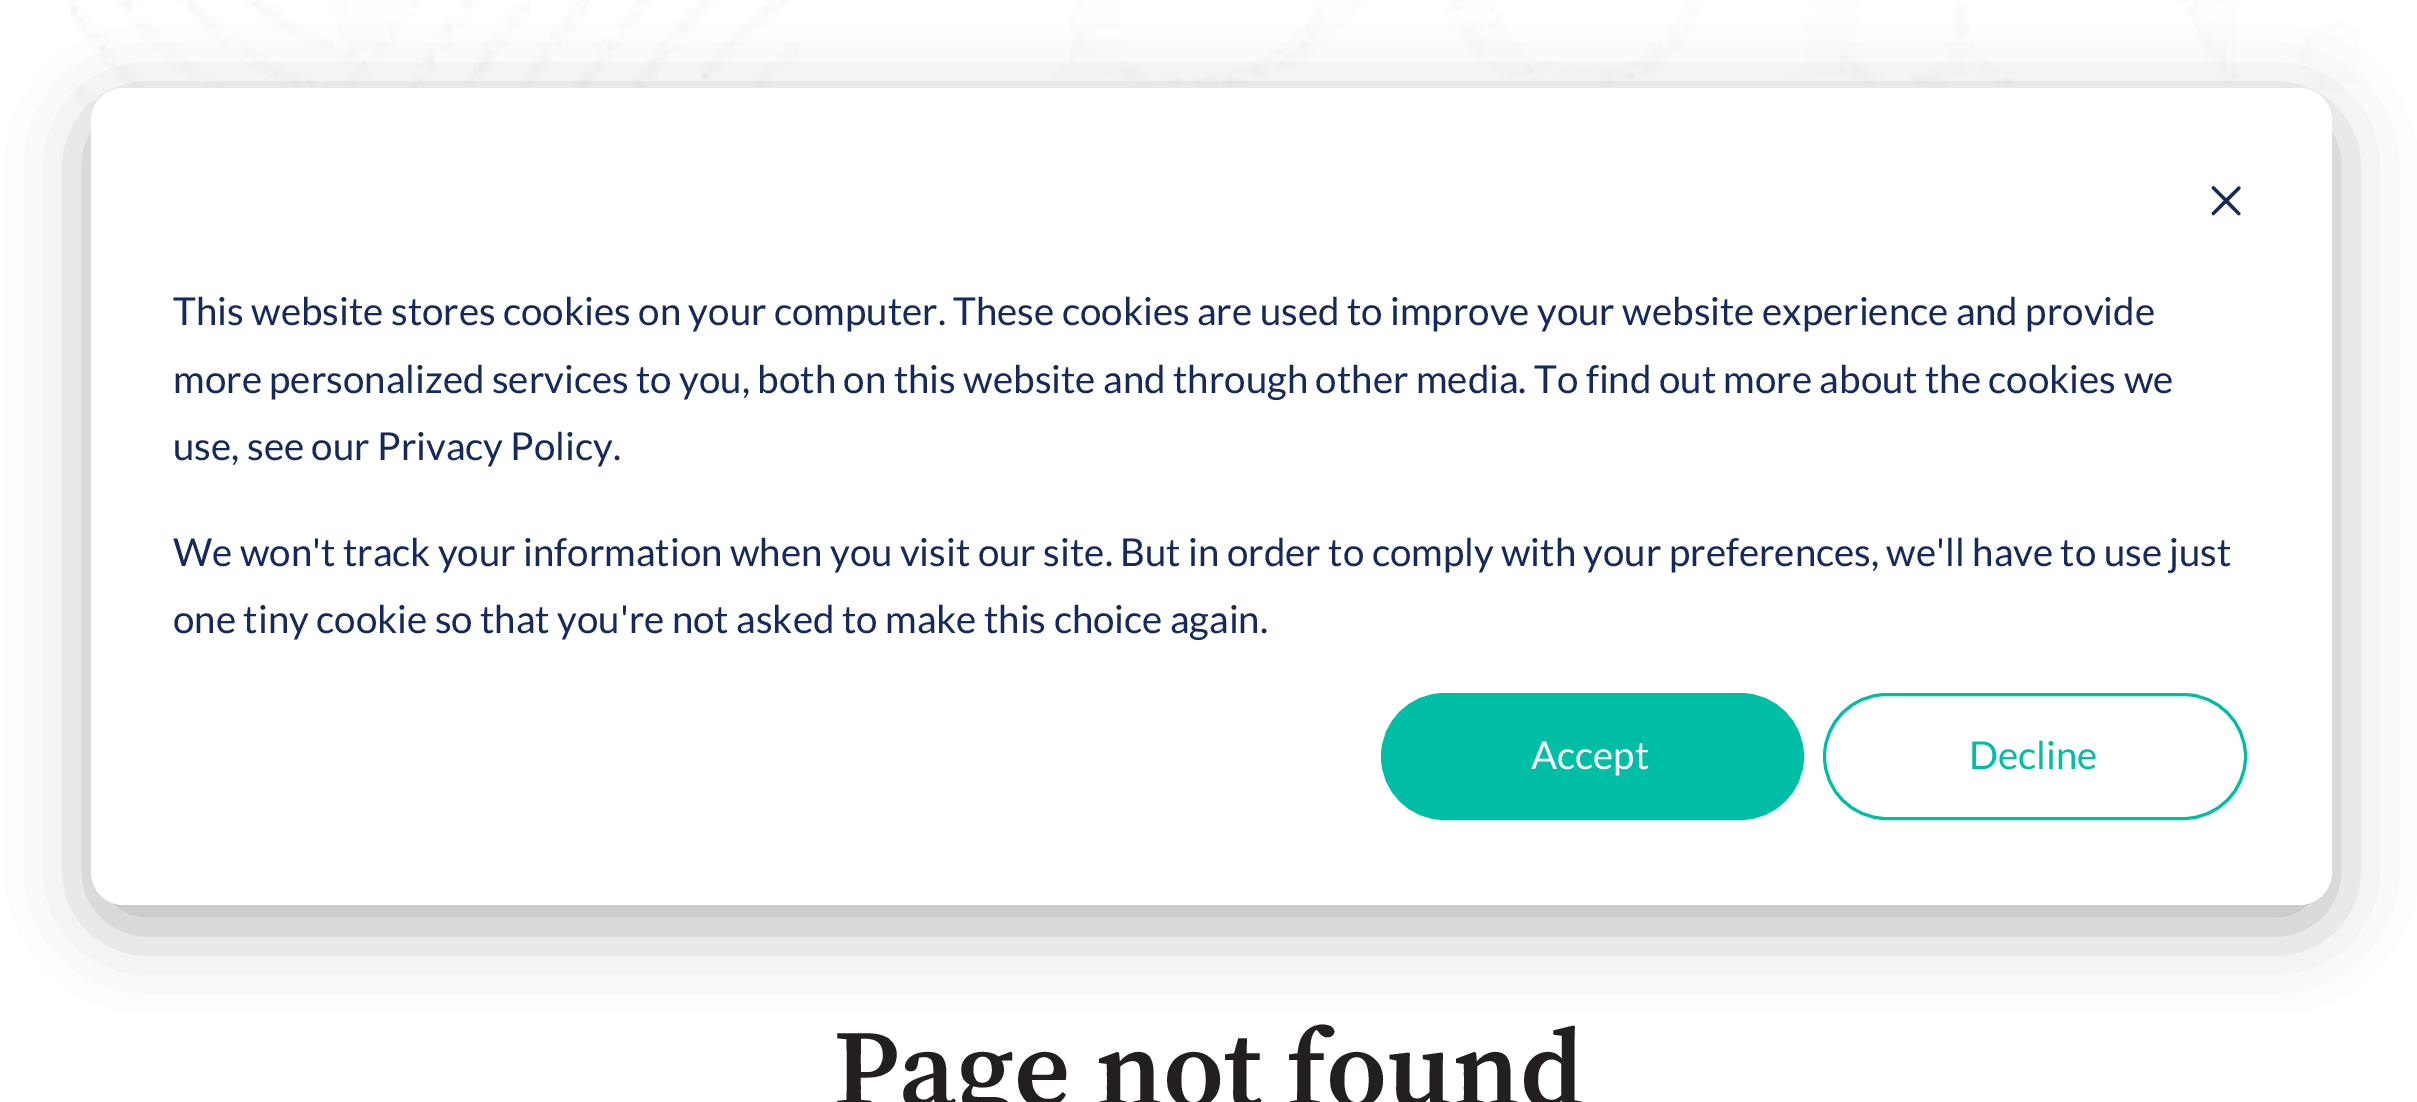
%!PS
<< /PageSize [2417 1102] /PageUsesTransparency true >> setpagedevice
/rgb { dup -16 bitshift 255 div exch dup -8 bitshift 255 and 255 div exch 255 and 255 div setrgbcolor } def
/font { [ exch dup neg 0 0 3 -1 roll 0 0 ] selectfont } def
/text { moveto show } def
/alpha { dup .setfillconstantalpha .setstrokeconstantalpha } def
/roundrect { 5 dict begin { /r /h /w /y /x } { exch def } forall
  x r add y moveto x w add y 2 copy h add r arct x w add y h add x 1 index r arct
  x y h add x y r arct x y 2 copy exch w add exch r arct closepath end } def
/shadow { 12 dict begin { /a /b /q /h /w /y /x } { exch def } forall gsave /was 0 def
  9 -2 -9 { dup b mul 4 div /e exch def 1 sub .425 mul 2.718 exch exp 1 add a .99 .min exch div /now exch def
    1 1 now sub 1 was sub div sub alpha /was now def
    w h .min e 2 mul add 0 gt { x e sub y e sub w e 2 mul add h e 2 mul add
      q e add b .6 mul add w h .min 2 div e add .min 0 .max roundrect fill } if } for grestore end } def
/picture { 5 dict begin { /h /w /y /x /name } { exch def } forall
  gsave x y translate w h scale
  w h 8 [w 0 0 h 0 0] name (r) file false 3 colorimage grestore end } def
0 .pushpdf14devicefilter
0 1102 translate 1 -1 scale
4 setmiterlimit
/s1 { /Lato-Regular 38.5 font 16#15295A rgb } def
/s2 { /Lato-Regular 38.5 font 16#FFFFFF rgb } def
/s3 { /Lato-Regular 38.5 font 16#00BDA5 rgb } def
/s4 { /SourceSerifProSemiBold-SemiBold 110 font 16#231F20 rgb } def
16#FFFFFF rgb
0 0 2417 1102 rectfill
(pic2.raw) 65 0 2294 119 picture
gsave
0 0 moveto 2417 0 lineto 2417 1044 lineto 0 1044 lineto closepath 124 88 moveto 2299 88 lineto 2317 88 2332 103 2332 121 curveto 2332 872 lineto 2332 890 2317 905 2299 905 curveto 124 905 lineto 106 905 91 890 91 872 curveto 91 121 lineto 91 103 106 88 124 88 curveto closepath eoclip newpath
16#000000 rgb
91 110 2241 817 33 38.5 0.28 shadow
grestore
91 88 2241 817 33 roundrect fill
(pic1.raw) 2211 186 30 30 picture
s1
(This website stores cookies on your computer. These cookies are used to improve your website experience and provide) 173 325 text
(more personalized services to you, both on this website and through other media. To find out more about the cookies we) 173 393 text
(use, see our Privacy Policy.) 173 460 text
(We won't track your information when you visit our site. But in order to comply with your preferences, we'll have to use just) 173 566 text
(one tiny cookie so that you're not asked to make this choice again.) 173 633 text
16#00BDA5 rgb
1382.5 694.5 420 124 62 roundrect gsave fill grestore
3 setlinewidth
stroke
s2
(Accept) 1531 769 text
16#00BDA5 rgb
1824.5 694.5 421 124 62 roundrect stroke
(Decline) 1969 769 text
s4
(Page not found) 833 1106 text
.poppdf14devicefilter showpage
